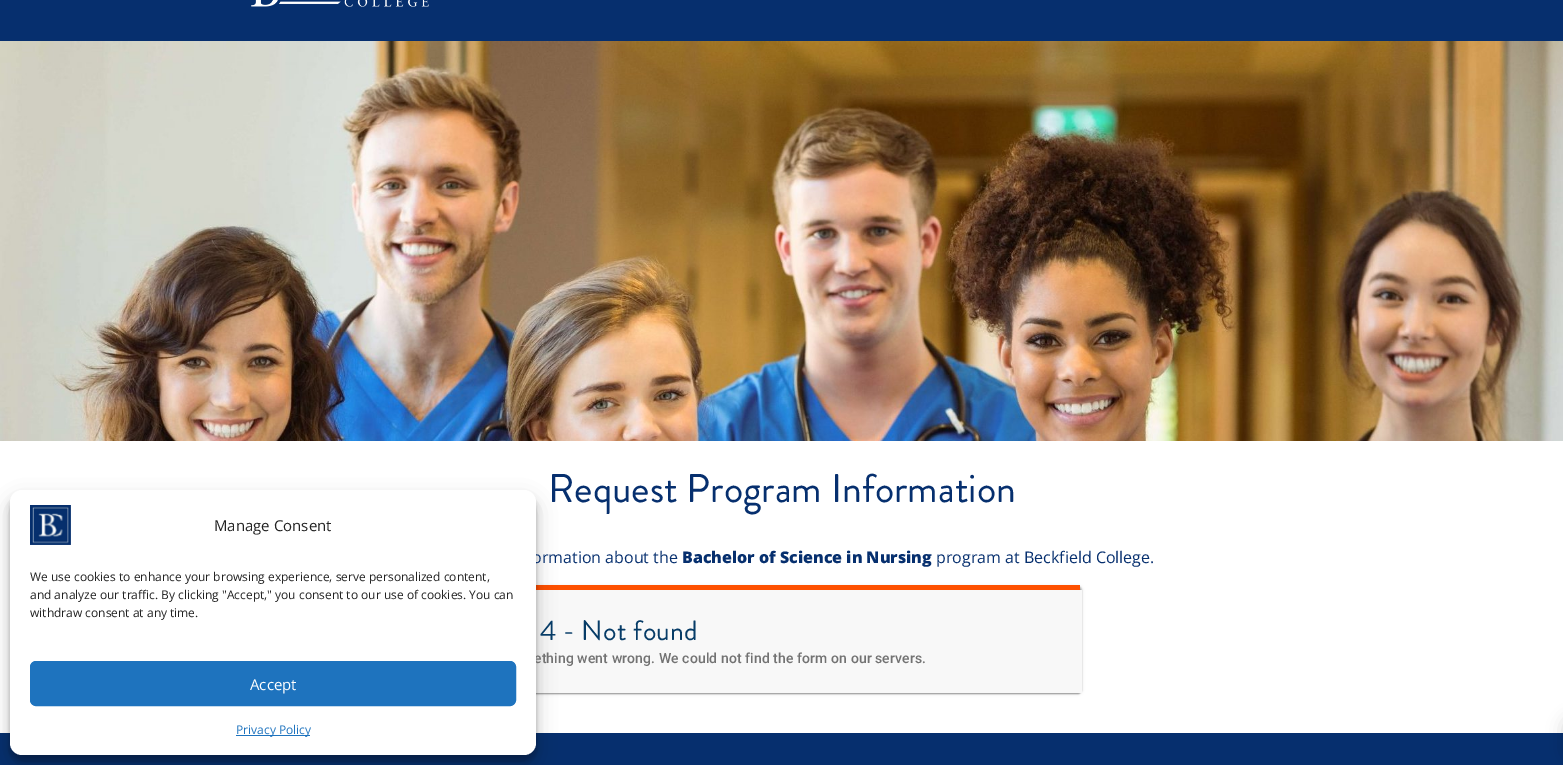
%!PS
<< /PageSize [1563 765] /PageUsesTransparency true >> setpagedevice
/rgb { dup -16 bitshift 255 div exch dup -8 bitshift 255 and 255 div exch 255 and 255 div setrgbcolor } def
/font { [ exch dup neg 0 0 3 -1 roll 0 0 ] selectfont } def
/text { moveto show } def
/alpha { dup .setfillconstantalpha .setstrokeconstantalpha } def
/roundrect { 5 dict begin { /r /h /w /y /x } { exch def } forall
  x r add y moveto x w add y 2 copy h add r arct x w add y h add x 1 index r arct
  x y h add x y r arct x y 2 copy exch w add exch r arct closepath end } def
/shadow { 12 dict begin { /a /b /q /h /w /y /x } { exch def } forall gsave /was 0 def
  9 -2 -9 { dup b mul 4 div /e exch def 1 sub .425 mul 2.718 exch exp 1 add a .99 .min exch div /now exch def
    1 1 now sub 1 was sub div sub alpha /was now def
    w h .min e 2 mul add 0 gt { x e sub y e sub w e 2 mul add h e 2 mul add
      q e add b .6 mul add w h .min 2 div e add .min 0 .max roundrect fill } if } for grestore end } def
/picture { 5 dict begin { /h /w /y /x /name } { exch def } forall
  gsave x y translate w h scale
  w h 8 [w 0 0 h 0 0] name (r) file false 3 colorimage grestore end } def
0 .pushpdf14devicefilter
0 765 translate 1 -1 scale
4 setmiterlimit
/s1 { /OpenSans-Regular 16 font 16#062F6E rgb } def
/s2 { /OpenSans-Regular 15 font 16#222222 rgb } def
/s3 { /OpenSans-Regular 12 font 16#222222 rgb } def
/s4 { /OpenSans-Regular 15 font 16#FFFFFF rgb } def
/s5 { /OpenSans-Regular 12 font 16#1E73BE rgb } def
/s6 { /BrandonGrotesque-Regular 40 font 16#062F6E rgb } def
/s7 { /OpenSans-ExtraBold 16 font 16#062F6E rgb } def
16#FFFFFF rgb
0 0 1563 765 rectfill
16#000000 rgb
482 586 600 108 4 1.5 0.12 shadow
482 586 600 108 4 0.5 0.14 shadow
483 588 598 106 3 0.5 0.2 shadow
16#FE5000 rgb
536 585 544 5 rectfill
16#F8F8F8 rgb
536 590 546 103 rectfill
16#062F6E rgb
0 733 1563 32 rectfill
16#000000 rgb
10 496 526 265 12 3 0.23 shadow
10 500 526 265 12 10 0.19 shadow
s1
(ormation about the) 532 563 text
/Roboto-Medium 14 font
16#727272 rgb
534 663 moveto 0.1 0 (ething went wrong. We could not find the form on our servers.) ashow
16#FFFFFF rgb
10 490 526 265 12 roundrect fill
(pic1.raw) 30 505 41 40 picture
s2
(Manage Consent) 214 531 text
s3
(We use cookies to enhance your browsing experience, serve personalized content,) 30 581 text
(and analyze our traffic. By clicking "Accept," you consent to our use of cookies. You can) 30 599 text
(withdraw consent at any time.) 30 617 text
16#1E73BE rgb
30.5 661.5 485 44 5.5 roundrect gsave fill grestore
stroke
s4
(Accept) 250 690 text
16#1E73BE rgb
236 735 74 1 rectfill
s5
(Privacy Policy) 236 734 text
16#062F6E rgb
0 0 1563 41 rectfill
(pic2.raw) 251 0 178 7 picture
(pic3.raw) 0 41 1563 400 picture
s6
(Request Program Information) 548 502 text
s7
(Bachelor of Science in Nursing) 682 563 text
s1
(program at Beckfield College.) 936 563 text
/BrandonGrotesque-Regular 28 font
16#073C67 rgb
540 640 moveto 0.25 0 (4 - Not found) ashow
16#000000 rgb
1563 717 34 44 10 8 0.15 shadow
.poppdf14devicefilter showpage
